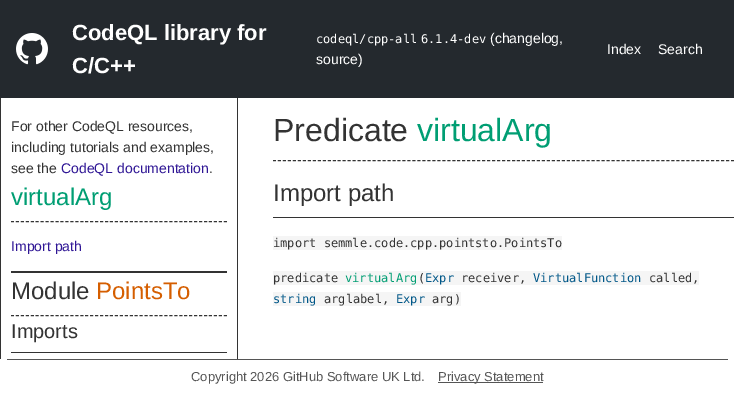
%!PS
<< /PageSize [734 399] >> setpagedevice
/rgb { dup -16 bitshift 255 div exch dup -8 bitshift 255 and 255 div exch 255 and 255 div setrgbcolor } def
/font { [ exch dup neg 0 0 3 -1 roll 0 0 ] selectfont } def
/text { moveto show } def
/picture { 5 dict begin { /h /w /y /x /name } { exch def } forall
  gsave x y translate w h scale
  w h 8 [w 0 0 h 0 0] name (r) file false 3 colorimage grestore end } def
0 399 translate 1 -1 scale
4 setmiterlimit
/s1 { /LiberationSans-Bold 22 font 16#FFFFFF rgb } def
/s2 { /DejaVuSansMono-Regular 12 font 16#FFFFFF rgb } def
/s3 { /LiberationSans-Regular 14 font 16#FFFFFF rgb } def
/s4 { /LiberationSans-Regular 14 font 16#333333 rgb } def
/s5 { /LiberationSans-Regular 14 font 16#2F1695 rgb } def
/s6 { /LiberationSans-Regular 24 font 16#009E73 rgb } def
/s7 { /LiberationSans-Regular 24 font 16#333333 rgb } def
/s8 { /LiberationSans-Regular 24 font 16#D55E00 rgb } def
/s9 { /LiberationSans-Regular 20 font 16#333333 rgb } def
/s10 { /LiberationSans-Regular 32 font 16#333333 rgb } def
/s11 { /LiberationSans-Regular 32 font 16#009E73 rgb } def
/s12 { /DejaVuSansMono-Regular 12 font 16#333333 rgb } def
/s13 { /DejaVuSansMono-Regular 12 font 16#009E73 rgb } def
/s14 { /DejaVuSansMono-Regular 12 font 16#005788 rgb } def
/s15 { /LiberationSans-Regular 13 font 16#555555 rgb } def
16#FFFFFF rgb
0 0 734 399 rectfill
16#24292E rgb
0 0 734 98 rectfill
(pic1.raw) 16 33 32 32 picture
s1
(CodeQL library for) 72 40 text
(C/C++) 72 73 text
s2
(codeql/cpp-all) 316 43 text
(6.1.4-dev) 421 43 text
s3
(\(changelog,) 490 43 text
(source\)) 316 64 text
(Index) 607 54 text
(Search) 658 54 text
16#333333 rgb
237 98 1 261 rectfill
0 98 1 261 rectfill
11 271 216 2 rectfill
(For other CodeQL resources,) 11 131 text
(including tutorials and examples,) 11 152 text
(see the) 11 173 text
s5
(CodeQL documentation) 61 173 text
s4
(.) 209 173 text
[3 1.95] 0 setdash
11 221.5 moveto 227 221.5 lineto stroke
s6
(virtualArg) 11 205 text
s5
(Import path) 11 251 text
16#333333 rgb
11 315.5 moveto 227 315.5 lineto stroke
s7
(Module) 11 299 text
s8
(PointsTo) 96 299 text
16#333333 rgb
11 352 216 1 rectfill
s9
(Imports) 11 338 text
[3 1.98] 0 setdash
273 160.5 moveto 734 160.5 lineto stroke
s10
(Predicate) 273 141 text
s11
(virtualArg) 417 141 text
16#333333 rgb
273 217 461 1 rectfill
s7
(Import path) 273 201 text
16#F5F5F5 rgb
273 236 289 14 rectfill
s12
(import semmle.code.cpp.pointsto.PointsTo) 273 247 text
16#F5F5F5 rgb
273 271 426 14 rectfill
s12
(predicate) 273 282 text
s13
(virtualArg) 345 282 text
s12
(\() 418 282 text
s14
(Expr) 425 282 text
s12
(receiver,) 461 282 text
s14
(VirtualFunction) 533 282 text
s12
(called,) 649 282 text
16#F5F5F5 rgb
273 292 188 14 rectfill
s14
(string) 273 303 text
s12
(arglabel,) 324 303 text
s14
(Expr) 396 303 text
s12
(arg\)) 432 303 text
16#555555 rgb
7 359 721 1 rectfill
s15
(Copyright 2026 GitHub Software UK Ltd.) 191 381 text
438 382 105 1 rectfill
(Privacy Statement) 438 381 text
showpage
